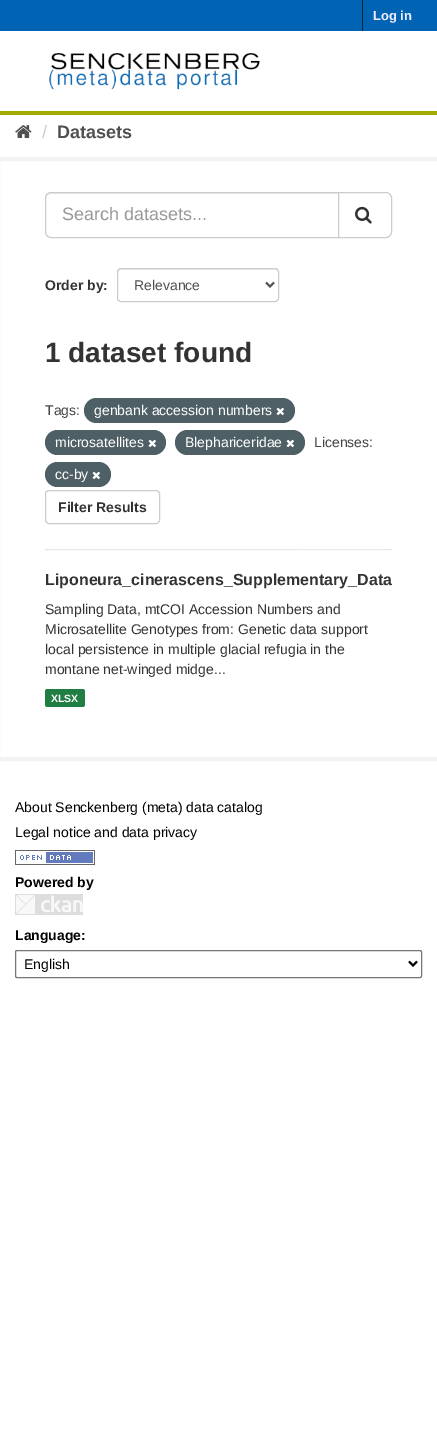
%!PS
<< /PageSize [437 1434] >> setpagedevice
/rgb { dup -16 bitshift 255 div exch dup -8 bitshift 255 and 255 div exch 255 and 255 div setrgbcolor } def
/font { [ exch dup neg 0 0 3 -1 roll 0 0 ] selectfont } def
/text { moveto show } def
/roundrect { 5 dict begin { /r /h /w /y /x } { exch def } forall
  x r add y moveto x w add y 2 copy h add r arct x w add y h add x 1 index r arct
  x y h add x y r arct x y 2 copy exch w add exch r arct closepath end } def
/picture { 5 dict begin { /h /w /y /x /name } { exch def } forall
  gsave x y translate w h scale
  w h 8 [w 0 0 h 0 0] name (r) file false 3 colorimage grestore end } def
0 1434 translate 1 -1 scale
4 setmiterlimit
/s1 { /LiberationSans-Bold 13 font 16#EEEEFF rgb } def
/s2 { /LiberationSans-Regular 18 font 16#CCCCCC rgb } def
/s3 { /LiberationSans-Bold 18 font 16#505050 rgb } def
/s4 { /LiberationSans-Regular 18 font 16#999999 rgb } def
/s5 { /LiberationSans-Bold 14 font 16#333333 rgb } def
/s6 { /LiberationSans-Regular 14 font 16#505050 rgb } def
/s7 { /LiberationSans-Bold 28 font 16#333333 rgb } def
/s8 { /LiberationSans-Regular 14 font 16#444444 rgb } def
/s9 { /LiberationSans-Regular 14 font 16#FFFFFF rgb } def
/s10 { /LiberationSans-Bold 16 font 16#333333 rgb } def
/s11 { /LiberationSans-Regular 14 font 16#333333 rgb } def
/s12 { /LiberationSans-Bold 10.5 font 16#FFFFFF rgb } def
/s13 { /LiberationSans-Regular 14 font 16#000000 rgb } def
/s14 { /LiberationSans-Bold 14 font 16#000000 rgb } def
16#FFFFFF rgb
0 0 437 1434 rectfill
16#0063B4 rgb
0 0 437 31 rectfill
16#00232E rgb
362 0 1 31 rectfill
s1
(Log in) 373 20 text
16#A4AA00 rgb
0 111 437 4 rectfill
(pic1.raw) 49 53 211 37 picture
(pic2.raw) 15 125 17 13 picture
s2
(/) 42 138 text
s3
(Datasets) 57 138 text
16#F2F2F2 rgb
4 setlinewidth
-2 159 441 600 rectstroke
16#DDDDDD rgb
1 setlinewidth
[1 1] 0 setdash
45 549.5 moveto 392 549.5 lineto stroke
16#ECECEC rgb
51 194 moveto 338 194 lineto 338 193 lineto 51 193 lineto 48 193 46 195 46 198 curveto 46 199 lineto 46 196 48 194 51 194 curveto closepath fill
16#CCCCCC rgb
[] 0 setdash
51 192.5 moveto 338.5 192.5 lineto 338.5 237.5 lineto 51 237.5 lineto 48 237.5 45.5 235 45.5 232 curveto 45.5 198 lineto 45.5 195 48 192.5 51 192.5 curveto closepath stroke
s4
(Search datasets...) 62 220 text
16#FFFFFF rgb
338.5 192.5 moveto 386 192.5 lineto 389 192.5 391.5 195 391.5 198 curveto 391.5 232 lineto 391.5 235 389 237.5 386 237.5 curveto 338.5 237.5 lineto closepath gsave fill grestore
16#CCCCCC rgb
stroke
(pic3.raw) 355 206 17 18 picture
s5
(Order by:) 45 290 text
16#ECECEC rgb
121 270 moveto 275 270 lineto 277 270 278 271 278 273 curveto 278 271 277 269 275 269 curveto 120 269 lineto 118 269 118 271 118 273 curveto 118 271 119 270 121 270 curveto closepath fill
16#CCCCCC rgb
117.5 268.5 161 33 3.5 roundrect stroke
16#555555 rgb
2 setlinewidth
266 282.5 moveto 270 286.5 lineto 274 282.5 lineto stroke
s6
(Relevance) 134 290 text
s7
(1 dataset found) 45 362 text
s8
(Tags:) 45 415 text
16#4E5F65 rgb
84 398 211 25 12.5 roundrect fill
s9
(genbank accession numbers) 94 415 text
(pic4.raw) 276 407 8 9 picture
16#4E5F65 rgb
45 430 121 25 12.5 roundrect fill
s9
(microsatellites) 55 447 text
(pic4.raw) 148 439 8 9 picture
16#4E5F65 rgb
175 430 130 25 12.5 roundrect fill
s9
(Blephariceridae) 185 447 text
(pic4.raw) 286 439 8 9 picture
s8
(Licenses:) 314 447 text
16#4E5F65 rgb
45 462 66 25 12.5 roundrect fill
s9
(cc-by) 55 479 text
(pic4.raw) 92 471 8 9 picture
16#CCCCCC rgb
1 setlinewidth
45.5 490.5 114 33 3.5 roundrect stroke
s5
(Filter Results) 58 512 text
s10
(Liponeura_cinerascens_Supplementary_Data) 45 585 text
s11
(Sampling Data, mtCOI Accession Numbers and) 45 614 text
(Microsatellite Genotypes from: Genetic data support) 45 634 text
(local persistence in multiple glacial refugia in the) 45 654 text
(montane net-winged midge...) 45 674 text
16#207E42 rgb
45 689 40 18 2.5 roundrect fill
s12
(XLSX) 51 702 text
s13
(About Senckenberg \(meta\) data catalog) 15 812 text
(Legal notice and data privacy) 15 837 text
(pic5.raw) 15 850 80 15 picture
s14
(Powered by) 15 887 text
16#DDDDDD rgb
15 894 68 21 rectfill
(pic6.raw) 16 895 67 19 picture
s14
(Language:) 15 940 text
16#767676 rgb
15.5 950.5 406 27 1.5 roundrect stroke
16#000000 rgb
2 setlinewidth
409 961.5 moveto 413 965.5 lineto 417 961.5 lineto stroke
s13
(English) 24 969 text
showpage
